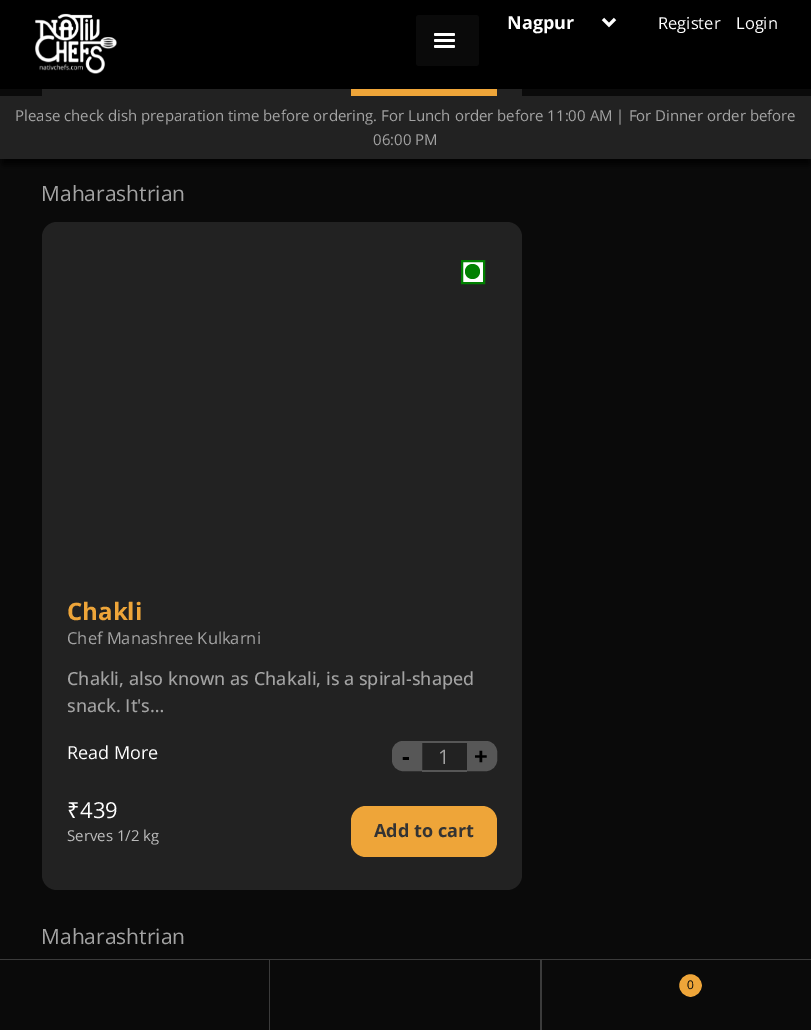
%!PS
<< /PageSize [811 1030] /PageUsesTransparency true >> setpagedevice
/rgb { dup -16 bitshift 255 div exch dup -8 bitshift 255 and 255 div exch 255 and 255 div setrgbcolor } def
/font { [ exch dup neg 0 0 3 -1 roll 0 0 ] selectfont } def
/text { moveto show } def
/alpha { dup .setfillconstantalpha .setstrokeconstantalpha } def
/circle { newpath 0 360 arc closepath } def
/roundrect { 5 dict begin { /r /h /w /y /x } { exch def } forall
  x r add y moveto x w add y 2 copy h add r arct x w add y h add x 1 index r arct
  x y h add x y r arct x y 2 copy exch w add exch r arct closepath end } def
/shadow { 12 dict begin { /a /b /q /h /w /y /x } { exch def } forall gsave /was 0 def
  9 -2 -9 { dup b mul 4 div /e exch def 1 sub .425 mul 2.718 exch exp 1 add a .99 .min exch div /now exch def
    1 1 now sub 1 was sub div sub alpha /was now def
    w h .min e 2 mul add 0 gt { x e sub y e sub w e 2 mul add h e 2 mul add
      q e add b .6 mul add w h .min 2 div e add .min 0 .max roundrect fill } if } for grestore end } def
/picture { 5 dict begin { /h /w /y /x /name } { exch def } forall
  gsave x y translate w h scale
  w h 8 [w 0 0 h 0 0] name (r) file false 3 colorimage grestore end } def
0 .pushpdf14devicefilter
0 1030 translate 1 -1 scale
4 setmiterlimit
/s1 { /OpenSans-Bold 18 font 16#FFFFFF rgb } def
/s2 { /OpenSans-Regular 16.5 font 16#FFFFFF rgb } def
/s3 { /OpenSans-Regular 15 font 16#A3A3A3 rgb } def
/s4 { /OpenSans-Regular 21 font 16#A3A3A3 rgb } def
/s5 { /OpenSans-Bold 24 font 16#EEA539 rgb } def
/s6 { /OpenSans-Regular 16.5 font 16#A3A3A3 rgb } def
/s7 { /OpenSans-Medium 18 font 16#A3A3A3 rgb } def
/s8 { /OpenSans-Regular 18 font 16#FFFFFF rgb } def
/s9 { /OpenSans-Bold 24 font 16#000000 rgb } def
/s10 { /OpenSans-Regular 20 font 16#A3A3A3 rgb } def
/s11 { /NotoSans-Regular 22 font 16#FFFFFF rgb } def
/s12 { /OpenSans-Regular 22 font 16#FFFFFF rgb } def
/s13 { /OpenSans-Regular 15 font 16#BBBBBB rgb } def
/s14 { /OpenSans-Bold 18 font 16#333333 rgb } def
/s15 { /OpenSans-Regular 12 font 16#0A0A0A rgb } def
16#0A0A0A rgb
0 0 811 1030 rectfill
16#000000 rgb
0 0 811 89 rectfill
(pic1.raw) 35 13 82 61 picture
16#0A0A0A rgb
416 15 63 51 3 roundrect fill
16#FFFFFF rgb
434 33 21 3 1.5 roundrect fill
434 39 21 3 1.5 roundrect fill
434 45 21 3 1.5 roundrect fill
3 setlinewidth
603 19 moveto 609 25 lineto 615 19 lineto stroke
s1
(Nagpur) 507 29 text
s2
(Register) 658 29 text
(Login) 736 29 text
16#222222 rgb
42 89 480 7 rectfill
16#EEA539 rgb
351 89 146 7 rectfill
16#000000 rgb
3 107 806 57 0 4 1 shadow
16#222222 rgb
0 96 811 63 rectfill
s3
(Please check dish preparation time before ordering. For Lunch order before 11:00 AM | For Dinner order before) 15 121 text
(06:00 PM) 373 145 text
16#222222 rgb
42 222 480 668 15 roundrect fill
s4
(Maharashtrian) 41 201 text
16#FFFFFF rgb
462 261 moveto 484 261 lineto 484 283 lineto 462 283 lineto closepath gsave fill grestore
16#008000 rgb
2 setlinewidth
stroke
472.5 271.5 7.5 circle fill
s5
(Chakli) 67 620 text
s6
(Chef Manashree Kulkarni) 67 644 text
s7
(Chakli, also known as Chakali, is a spiral-shaped) 67 685 text
(snack. It's…) 67 712 text
s8
(Read More) 67 759 text
16#575757 rgb
403 742 moveto 421 742 lineto 421 770 lineto 403 770 lineto 397.5 770 393 765.5 393 760 curveto 393 752 lineto 393 746.5 397.5 742 403 742 curveto closepath gsave fill grestore
stroke
s9
(-) 402 765 text
16#575757 rgb
422 741 45 2 rectfill
422 770 45 2 rectfill
s10
(1) 438 764 text
16#575757 rgb
468 742 moveto 486 742 lineto 491.5 742 496 746.5 496 752 curveto 496 760 lineto 496 765.5 491.5 770 486 770 curveto 468 770 lineto closepath gsave fill grestore
stroke
s9
(+) 474 765 text
s11
(₹) 67 818 text
s12
(439) 80 818 text
s13
(Serves 1/2 kg) 67 841 text
16#EEA539 rgb
351 806 146 51 15 roundrect fill
s14
(Add to cart) 374 837 text
s4
(Maharashtrian) 41 944 text
16#3B3B3B rgb
0 959 811 1 rectfill
0.2 alpha
16#FFFFFF rgb
269 960 1 70 rectfill
1 alpha
16#3B3B3B rgb
540 960 2 70 rectfill
16#EEA539 rgb
690.5 985.5 12.5 circle gsave fill grestore
16#0A0A0A rgb
stroke
s15
(0) 687 989 text
.poppdf14devicefilter showpage
